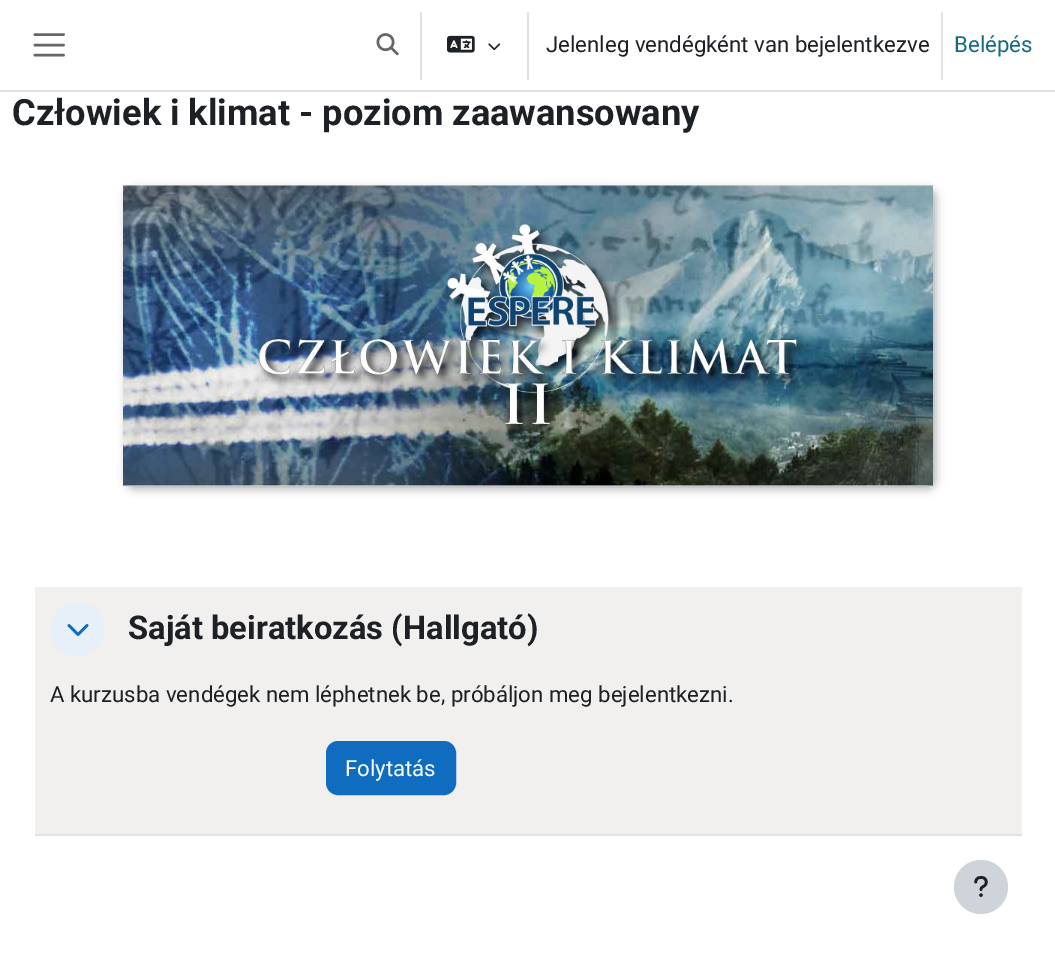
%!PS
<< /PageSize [1055 961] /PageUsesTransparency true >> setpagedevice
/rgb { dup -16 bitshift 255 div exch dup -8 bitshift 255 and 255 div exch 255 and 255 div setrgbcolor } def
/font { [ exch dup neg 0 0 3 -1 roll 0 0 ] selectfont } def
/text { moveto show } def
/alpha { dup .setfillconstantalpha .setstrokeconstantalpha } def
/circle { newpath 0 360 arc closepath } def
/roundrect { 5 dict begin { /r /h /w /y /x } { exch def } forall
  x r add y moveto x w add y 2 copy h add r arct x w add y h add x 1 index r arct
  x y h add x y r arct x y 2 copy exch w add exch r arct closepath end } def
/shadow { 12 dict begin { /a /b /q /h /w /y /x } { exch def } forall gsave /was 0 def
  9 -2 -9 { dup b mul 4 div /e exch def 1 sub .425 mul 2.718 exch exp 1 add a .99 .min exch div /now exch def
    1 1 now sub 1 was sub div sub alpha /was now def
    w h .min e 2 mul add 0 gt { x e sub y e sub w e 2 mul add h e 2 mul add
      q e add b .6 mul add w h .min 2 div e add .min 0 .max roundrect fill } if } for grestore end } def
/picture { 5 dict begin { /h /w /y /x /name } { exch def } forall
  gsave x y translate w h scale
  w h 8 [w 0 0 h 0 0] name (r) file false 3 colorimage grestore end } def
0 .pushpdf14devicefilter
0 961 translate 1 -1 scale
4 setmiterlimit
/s1 { /Roboto-Regular 22.2 font 16#1D2125 rgb } def
/s2 { /Roboto-Regular 22.2 font 16#166B83 rgb } def
/s3 { /Roboto-Bold 36.25 font 16#1D2125 rgb } def
/s4 { /Roboto-Bold 32.75 font 16#1D2125 rgb } def
/s5 { /Roboto-Regular 22.2 font 16#FFFFFF rgb } def
16#FFFFFF rgb
0 0 1055 961 rectfill
16#DEE2E6 rgb
0 90 1055 2 rectfill
16#666666 rgb
2.6 setlinewidth
1 setlinecap
35 34.5 moveto 63.5 34.5 lineto 35 45 moveto 63.5 45 lineto 35 55 moveto 63.5 55 lineto stroke
(pic1.raw) 376 33 23 23 picture
16#DEE2E6 rgb
420 12 2 68 rectfill
(pic2.raw) 447 35 28 18 picture
(pic3.raw) 488 43 13 8 picture
527 12 2 68 rectfill
s1
(Jelenleg vendégként van bejelentkezve) 546 52 text
16#DEE2E6 rgb
941 12 2 68 rectfill
s2
(Belépés) 954 52 text
s3
(Człowiek i klimat - poziom zaawansowany) 12 125 text
16#B1B1B7 rgb
126 189 810 300 8 4.5 1 shadow
(pic4.raw) 123 185 810 301 picture
16#F2F0EF rgb
35 587 987 247 rectfill
16#DEE2E6 rgb
35 834 987 2 rectfill
16#E7F0F9 rgb
77 629 27 circle fill
(pic5.raw) 67 624 22 12 picture
s4
(Saját beiratkozás \(Hallgató\)) 128 639 text
s1
(A kurzusba vendégek nem léphetnek be, próbáljon meg bejelentkezni.) 50 702 text
16#0F6CBF rgb
327 742 128 52 11 roundrect gsave fill grestore
2 setlinewidth
0 setlinecap
stroke
s5
(Folytatás) 345 776 text
16#CED4DA rgb
981 887 27 circle fill
(pic6.raw) 974 876 14 21 picture
.poppdf14devicefilter showpage
